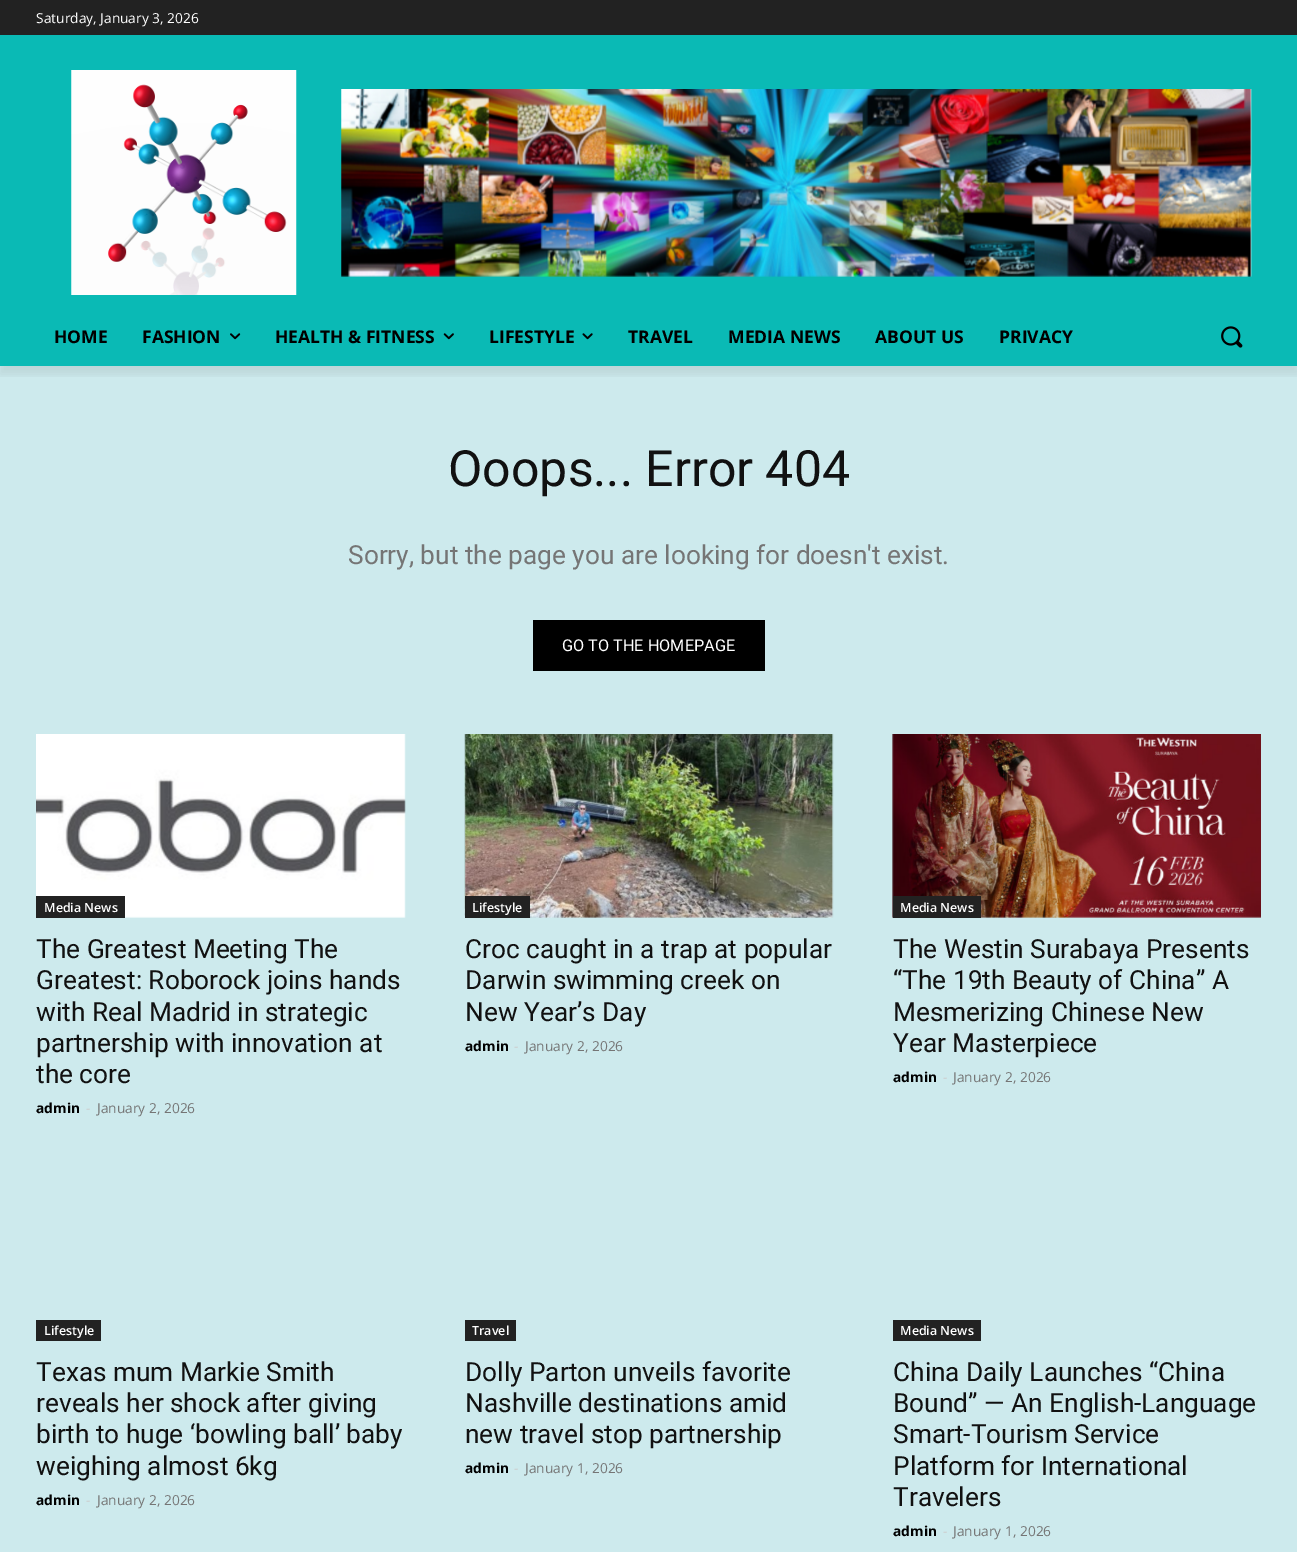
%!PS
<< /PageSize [1297 1552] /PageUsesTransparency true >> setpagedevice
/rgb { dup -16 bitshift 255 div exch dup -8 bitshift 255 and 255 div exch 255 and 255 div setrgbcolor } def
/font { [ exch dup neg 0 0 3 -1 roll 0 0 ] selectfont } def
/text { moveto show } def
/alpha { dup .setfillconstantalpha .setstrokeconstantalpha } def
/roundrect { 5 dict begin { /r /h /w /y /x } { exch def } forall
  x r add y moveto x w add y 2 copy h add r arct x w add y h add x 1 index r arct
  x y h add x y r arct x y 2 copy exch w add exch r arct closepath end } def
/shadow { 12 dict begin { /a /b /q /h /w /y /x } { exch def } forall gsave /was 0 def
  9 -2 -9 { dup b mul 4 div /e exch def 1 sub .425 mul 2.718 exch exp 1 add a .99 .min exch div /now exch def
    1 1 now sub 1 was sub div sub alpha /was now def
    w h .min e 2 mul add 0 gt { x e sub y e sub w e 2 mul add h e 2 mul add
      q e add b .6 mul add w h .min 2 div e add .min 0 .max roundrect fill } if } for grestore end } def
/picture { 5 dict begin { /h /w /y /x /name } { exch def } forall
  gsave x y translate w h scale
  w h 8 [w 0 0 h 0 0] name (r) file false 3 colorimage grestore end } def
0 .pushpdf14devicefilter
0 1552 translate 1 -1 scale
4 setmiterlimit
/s1 { /OpenSans-Regular 13.75 font 16#FFFFFF rgb } def
/s2 { /OpenSans-Bold 17.5 font 16#000000 rgb } def
/s3 { /Roboto-Regular 50 font 16#111111 rgb } def
/s4 { /Roboto-Regular 26.25 font 16#757575 rgb } def
/s5 { /Roboto-Regular 16.25 font 16#FFFFFF rgb } def
/s6 { /OpenSans-SemiBold 12.5 font 16#FFFFFF rgb } def
/s7 { /Roboto-Regular 26.25 font 16#111111 rgb } def
/s8 { /OpenSans-Bold 13.75 font 16#000000 rgb } def
/s9 { /OpenSans-Regular 13.75 font 16#CCCCCC rgb } def
/s10 { /OpenSans-Regular 13.75 font 16#757575 rgb } def
16#CDEAED rgb
0 0 1297 1552 rectfill
16#222222 rgb
0 0 1297 35 rectfill
16#0ABAB5 rgb
0 35 1297 331 rectfill
(pic1.raw) 71 70 226 225 picture
(pic2.raw) 341 89 911 188 picture
gsave
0 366 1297 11 rectclip
16#000000 rgb
0 8 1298 366 0 5 0.08 shadow
grestore
s1
(Saturday, January 3, 2026) 36 23 text
s2
(HOME) 54 343 text
(FASHION) 142 343 text
(pic3.raw) 230 333 11 7 picture
(HEALTH & FITNESS) 275 343 text
(pic4.raw) 443 333 11 7 picture
(LIFESTYLE) 489 343 text
(pic5.raw) 582 333 11 7 picture
(TRAVEL) 628 343 text
(MEDIA NEWS) 728 343 text
(ABOUT US) 875 343 text
(PRIVACY) 999 343 text
(pic6.raw) 1221 326 22 22 picture
s3
(Ooops... Error 404) 448 486 text
s4
(Sorry, but the page you are looking for doesn't exist.) 348 564 text
16#000000 rgb
533 620 232 51 rectfill
s5
(GO TO THE HOMEPAGE) 562 651 text
(pic7.raw) 36 734 370 184 picture
16#222222 rgb
36 896 89 22 rectfill
s6
(Media News) 44 912 text
s7
(The Greatest Meeting The) 36 958 text
(Greatest: Roborock joins hands) 36 989 text
(with Real Madrid in strategic) 36 1021 text
(partnership with innovation at) 36 1052 text
(the core) 36 1083 text
s8
(admin) 36 1113 text
s9
(-) 86 1113 text
s10
(January 2, 2026) 97 1113 text
(pic8.raw) 464 734 370 184 picture
16#222222 rgb
465 896 65 22 rectfill
s6
(Lifestyle) 472 912 text
s7
(Croc caught in a trap at popular) 465 958 text
(Darwin swimming creek on) 465 989 text
(New Year’s Day) 465 1021 text
s8
(admin) 465 1051 text
s9
(-) 514 1051 text
s10
(January 2, 2026) 525 1051 text
(pic9.raw) 892 734 369 184 picture
16#222222 rgb
893 896 88 22 rectfill
s6
(Media News) 900 912 text
s7
(The Westin Surabaya Presents) 893 958 text
(“The 19th Beauty of China” A) 893 989 text
(Mesmerizing Chinese New) 893 1021 text
(Year Masterpiece) 893 1052 text
s8
(admin) 893 1082 text
s9
(-) 943 1082 text
s10
(January 2, 2026) 953 1082 text
16#222222 rgb
36 1320 65 21 rectfill
s6
(Lifestyle) 44 1335 text
s7
(Texas mum Markie Smith) 36 1381 text
(reveals her shock after giving) 36 1412 text
(birth to huge ‘bowling ball’ baby) 36 1443 text
(weighing almost 6kg) 36 1475 text
s8
(admin) 36 1505 text
s9
(-) 86 1505 text
s10
(January 2, 2026) 97 1505 text
16#222222 rgb
465 1320 51 21 rectfill
s6
(Travel) 472 1335 text
s7
(Dolly Parton unveils favorite) 465 1381 text
(Nashville destinations amid) 465 1412 text
(new travel stop partnership) 465 1443 text
s8
(admin) 465 1473 text
s9
(-) 514 1473 text
s10
(January 1, 2026) 525 1473 text
16#222222 rgb
893 1320 88 21 rectfill
s6
(Media News) 900 1335 text
s7
(China Daily Launches “China) 893 1381 text
(Bound” — An English-Language) 893 1412 text
(Smart-Tourism Service) 893 1443 text
(Platform for International) 893 1475 text
(Travelers) 893 1506 text
s8
(admin) 893 1536 text
s9
(-) 943 1536 text
s10
(January 1, 2026) 953 1536 text
.poppdf14devicefilter showpage
